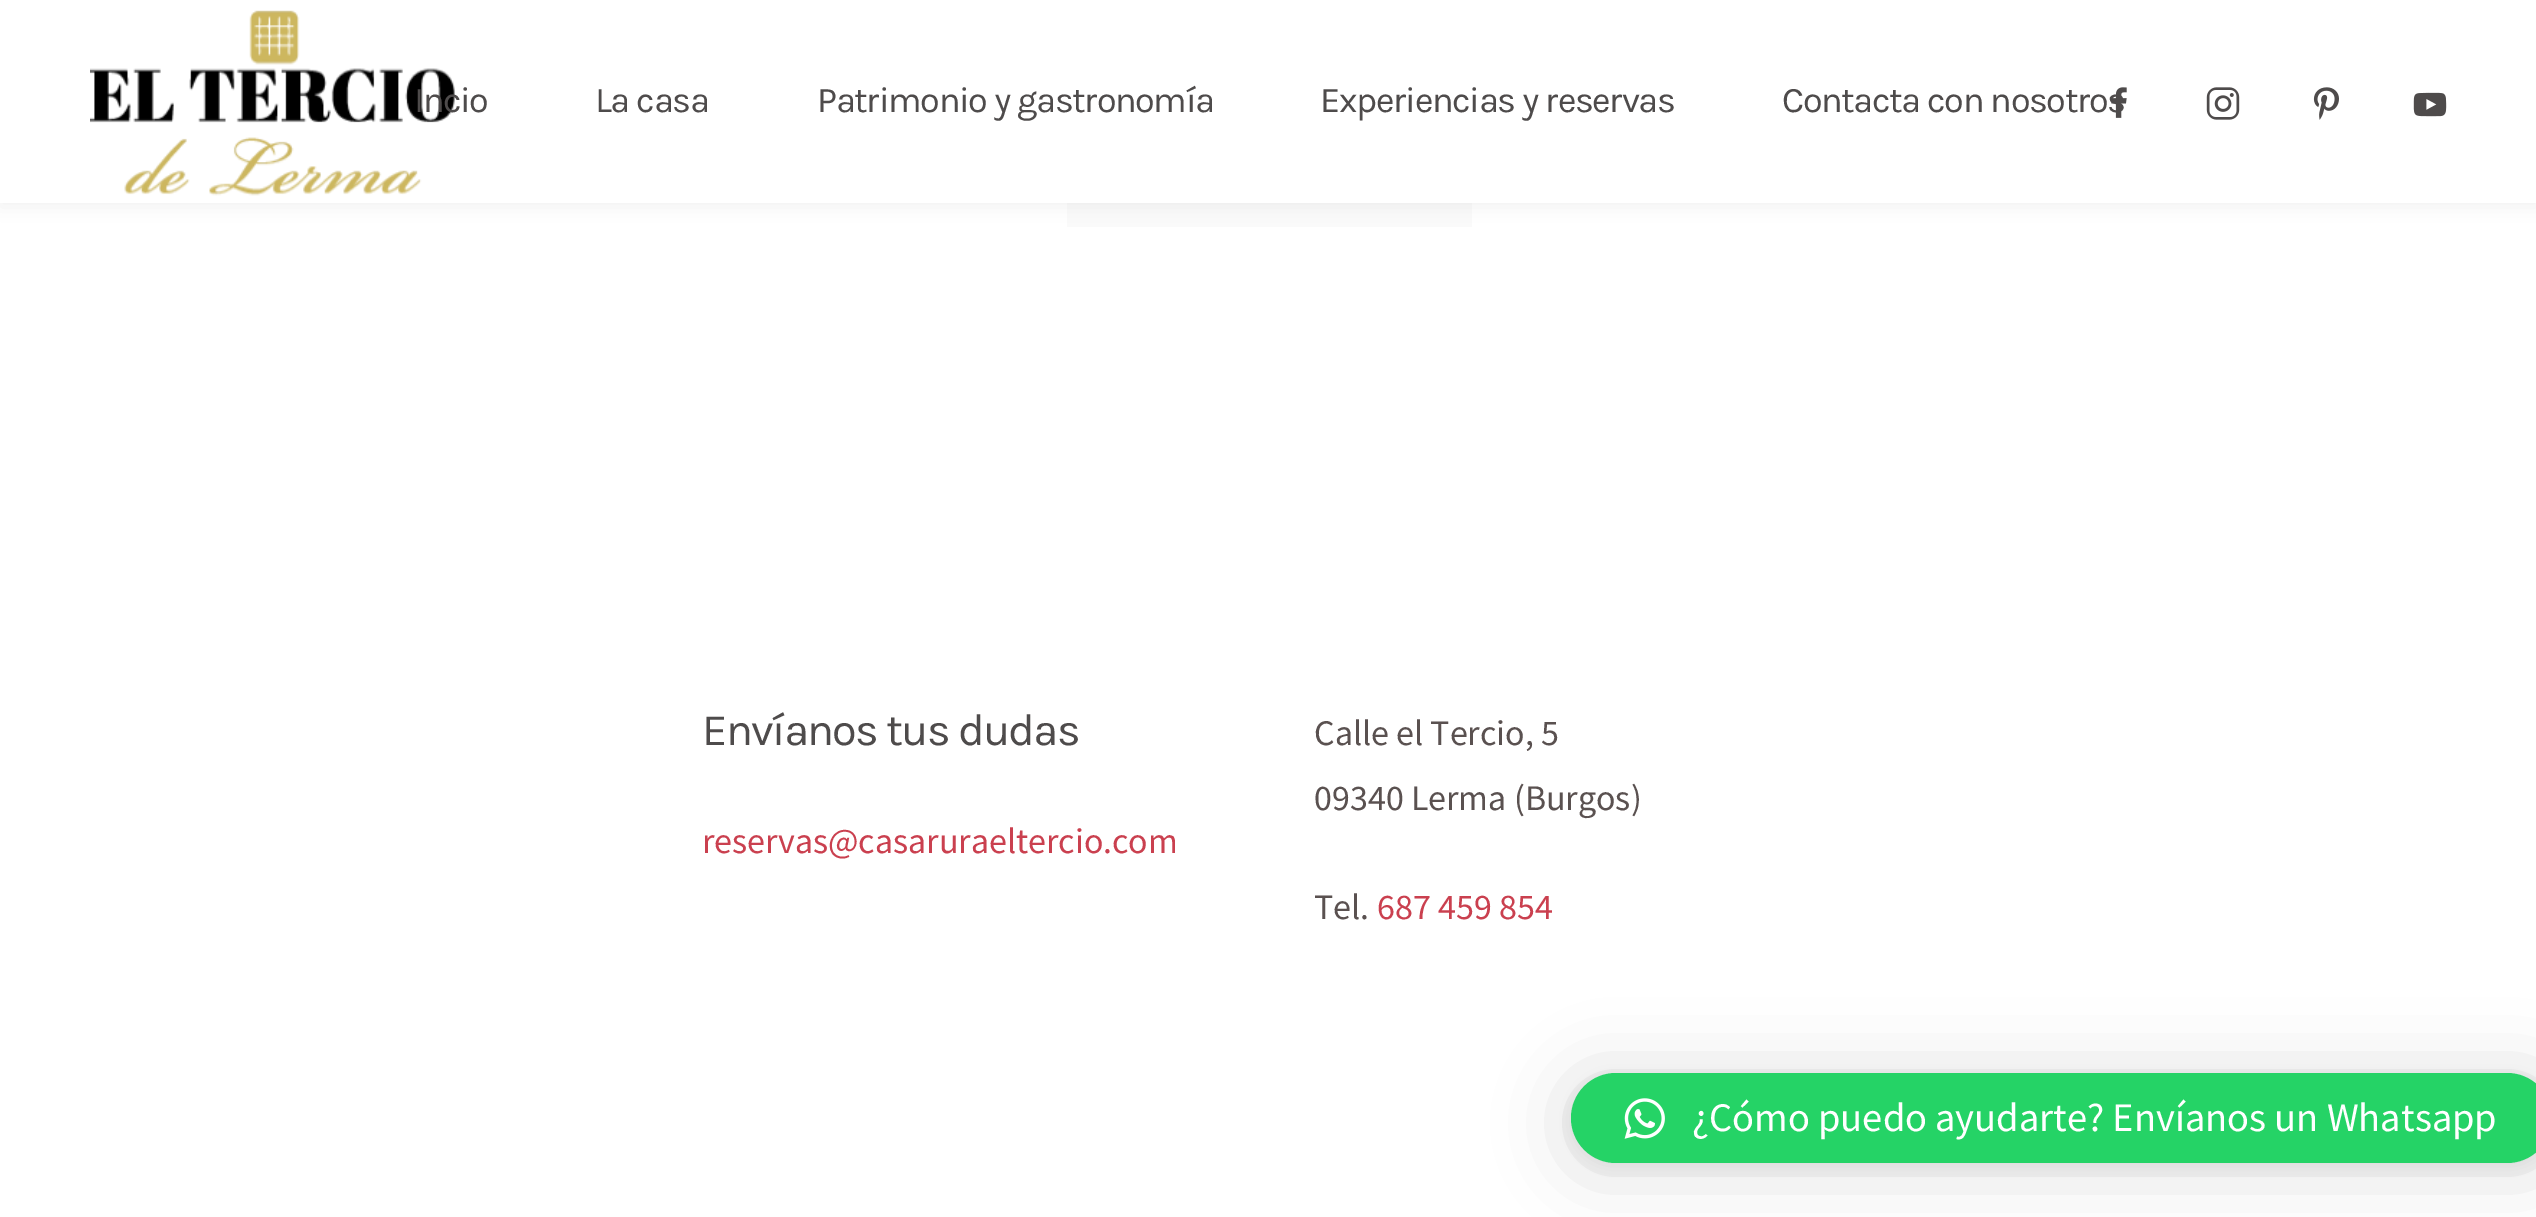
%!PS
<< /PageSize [2536 1217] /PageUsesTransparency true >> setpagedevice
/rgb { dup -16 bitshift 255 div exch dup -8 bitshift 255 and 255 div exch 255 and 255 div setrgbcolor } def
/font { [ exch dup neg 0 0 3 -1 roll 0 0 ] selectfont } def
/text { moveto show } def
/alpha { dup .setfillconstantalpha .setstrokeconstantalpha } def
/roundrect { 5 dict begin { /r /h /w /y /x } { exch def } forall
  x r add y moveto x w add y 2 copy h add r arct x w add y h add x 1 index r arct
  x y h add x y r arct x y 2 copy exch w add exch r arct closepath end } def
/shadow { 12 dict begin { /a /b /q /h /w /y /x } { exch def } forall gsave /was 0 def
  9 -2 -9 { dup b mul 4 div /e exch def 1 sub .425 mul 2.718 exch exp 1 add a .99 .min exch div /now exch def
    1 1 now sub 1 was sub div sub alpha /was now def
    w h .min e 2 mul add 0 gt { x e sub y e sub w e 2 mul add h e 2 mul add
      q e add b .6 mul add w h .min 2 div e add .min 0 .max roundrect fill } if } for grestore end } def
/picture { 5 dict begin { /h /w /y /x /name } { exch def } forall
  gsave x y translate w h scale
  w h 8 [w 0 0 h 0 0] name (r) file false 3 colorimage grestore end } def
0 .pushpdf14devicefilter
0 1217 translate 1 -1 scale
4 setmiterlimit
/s1 { /SourceSansPro-Regular 36 font 16#CA404F rgb } def
/s2 { /SourceSansPro-Regular 36 font 16#5A5150 rgb } def
/s3 { /SourceSansPro-Regular 40.5 font 16#FFFFFF rgb } def
16#FFFFFF rgb
0 0 2536 1217 rectfill
16#FAFAFA rgb
1067 203 405 24 rectfill
16#000000 rgb
0 5 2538 202 0 9 0.06 shadow
16#FFFFFF rgb
0 0 2536 203 rectfill
(pic1.raw) 90 10 365 186 picture
/Karla-Regular 36 font
16#4E4B4B rgb
414 112 moveto -1.4 0 (Incio) ashow
595 112 moveto -1.4 0 (La casa) ashow
817 112 moveto -1.4 0 (Patrimonio y gastronomía) ashow
1320 112 moveto -1.4 0 (Experiencias y reservas) ashow
(pic2.raw) 2111 87 16 31 picture
1782 112 moveto -1.4 0 (Contacta con nosotros) ashow
(pic3.raw) 2206 87 34 33 picture
(pic4.raw) 2313 87 26 33 picture
(pic5.raw) 2413 92 34 25 picture
/Karla-Regular 45 font
702 745 moveto -1.75 0 (Envíanos tus dudas) ashow
s1
(reservas@casaruraeltercio.com) 702 853 text
s2
(Calle el Tercio, 5) 1314 745 text
(09340 Lerma \(Burgos\)) 1314 810 text
(Tel.) 1314 919 text
s1
(687 459 854) 1377 919 text
16#000000 rgb
1571 1078 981 90 45 36 0.16 shadow
1571 1076 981 90 45 7 0.06 shadow
16#25D366 rgb
1571 1073 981 90 45 roundrect fill
(pic6.raw) 1624 1098 41 41 picture
s3
(¿Cómo puedo ayudarte? Envíanos un Whatsapp) 1692 1131 text
.poppdf14devicefilter showpage
